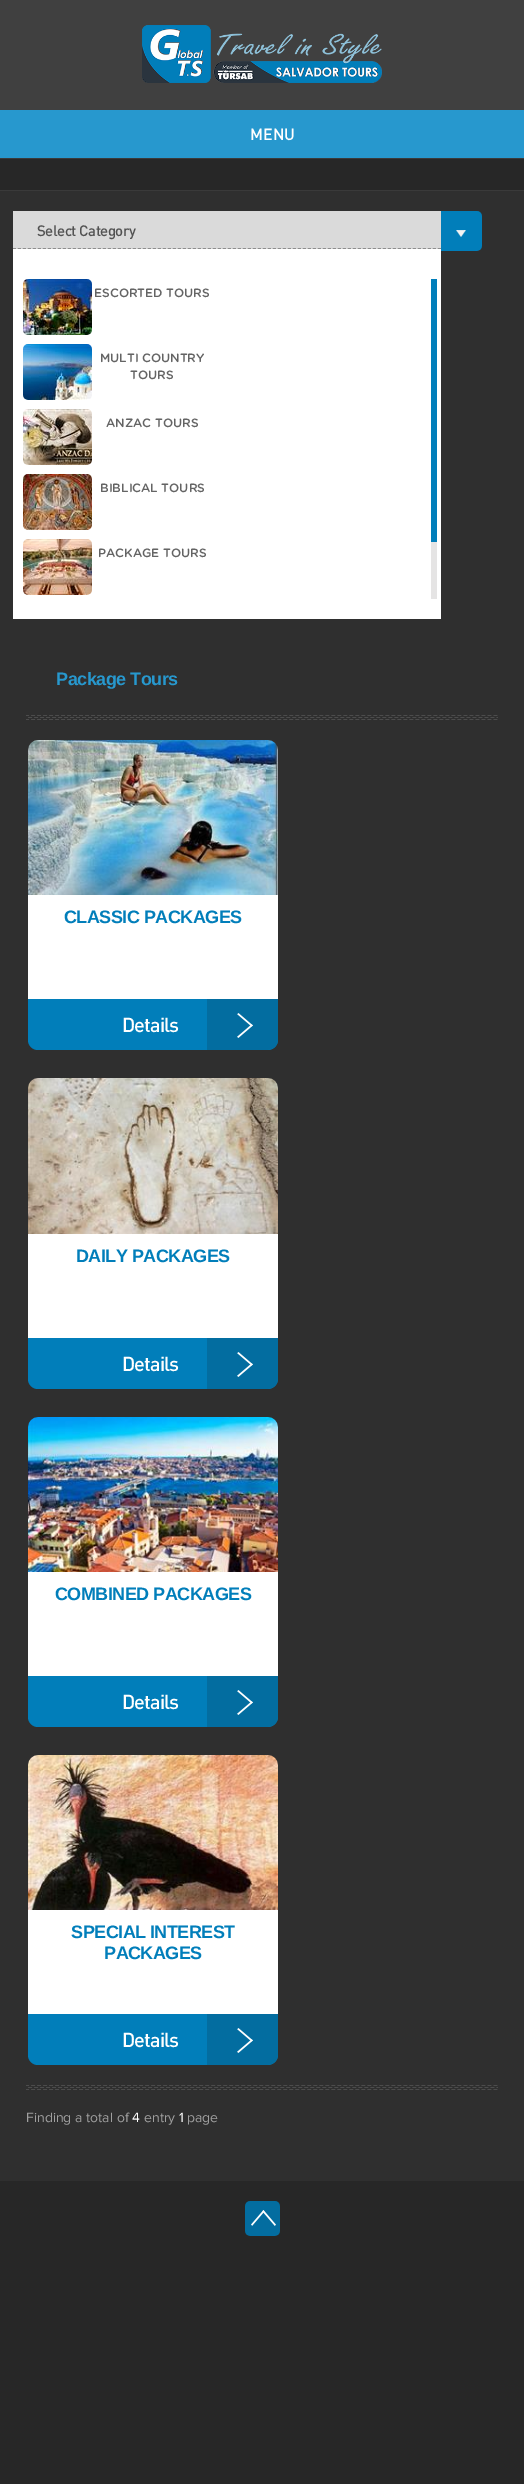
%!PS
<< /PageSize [524 2484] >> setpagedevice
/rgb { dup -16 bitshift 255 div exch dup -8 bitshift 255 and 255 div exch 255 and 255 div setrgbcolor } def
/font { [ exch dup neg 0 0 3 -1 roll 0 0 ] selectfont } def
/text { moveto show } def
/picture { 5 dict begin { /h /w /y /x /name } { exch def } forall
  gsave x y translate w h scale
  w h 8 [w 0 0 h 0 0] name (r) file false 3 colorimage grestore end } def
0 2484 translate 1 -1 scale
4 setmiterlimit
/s1 { /DIN-Medium 16 font 16#FFFFFF rgb } def
/s2 { /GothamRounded-Medium 12 font 16#646464 rgb } def
/s3 { /ProximaNova-Regular 14 font 16#A0A0A0 rgb } def
/s4 { /ProximaNova-Regular 14 font 16#FFFFFF rgb } def
16#272727 rgb
0 0 524 2484 rectfill
16#404040 rgb
0 0 524 110 rectfill
(pic1.raw) 142 25 240 58 picture
16#2798CE rgb
0 110 524 48 rectfill
s1
(MENU) 250 140 text
16#3A3A3A rgb
0 158 524 1 rectfill
0 190 524 1 rectfill
16#2F2F2F rgb
0 191 524 1990 rectfill
16#DADADA rgb
13 211 428 38 rectfill
16#8E8E8E rgb
[3 2] 0 setdash
13 248.5 moveto 441 248.5 lineto stroke
/DIN-Medium 15 font
16#525252 rgb
37 236 moveto -0.5 0 (Select Category) ashow
(pic2.raw) 441 211 41 40 picture
16#FFFFFF rgb
13 249 428 370 rectfill
(pic3.raw) 23 279 69 56 picture
s2
(ESCORTED TOURS) 94 297 text
(pic4.raw) 23 344 69 56 picture
(MULTI COUNTRY) 100 362 text
(TOURS) 130 379 text
(pic5.raw) 23 409 69 56 picture
(ANZAC TOURS) 106 427 text
(pic6.raw) 23 474 69 56 picture
(BIBLICAL TOURS) 100 492 text
(pic7.raw) 23 539 69 56 picture
(PACKAGE TOURS) 98 557 text
16#E5E4E4 rgb
431 542 6 57 rectfill
16#017EBA rgb
431 279 6 263 rectfill
/LiberationSans-Bold 18 font
16#2798CE rgb
56 685 moveto -0.5 0 (Package Tours) ashow
(pic8.raw) 26 715 472 5 picture
(pic9.raw) 28 740 250 155 picture
16#FFFFFF rgb
28 895 250 104 rectfill
16#017EBA rgb
64 923 moveto -0.5 0 (CLASSIC PACKAGES) ashow
28 999 moveto 278 999 lineto 278 1040 lineto 278 1045.5 273.5 1050 268 1050 curveto 38 1050 lineto 32.5 1050 28 1045.5 28 1040 curveto closepath fill
/DIN-Medium 20 font
16#FFFFFF rgb
122 1032 moveto -1 0 (Details) ashow
(pic10.raw) 207 999 71 51 picture
(pic11.raw) 28 1078 250 156 picture
28 1234 250 104 rectfill
/LiberationSans-Bold 18 font
16#017EBA rgb
76 1262 moveto -0.5 0 (DAILY PACKAGES) ashow
28 1338 moveto 278 1338 lineto 278 1379 lineto 278 1384.5 273.5 1389 268 1389 curveto 38 1389 lineto 32.5 1389 28 1384.5 28 1379 curveto closepath fill
/DIN-Medium 20 font
16#FFFFFF rgb
122 1371 moveto -1 0 (Details) ashow
(pic10.raw) 207 1338 71 51 picture
(pic12.raw) 28 1417 250 155 picture
28 1572 250 104 rectfill
/LiberationSans-Bold 18 font
16#017EBA rgb
55 1600 moveto -0.5 0 (COMBINED PACKAGES) ashow
28 1676 moveto 278 1676 lineto 278 1717 lineto 278 1722.5 273.5 1727 268 1727 curveto 38 1727 lineto 32.5 1727 28 1722.5 28 1717 curveto closepath fill
/DIN-Medium 20 font
16#FFFFFF rgb
122 1709 moveto -1 0 (Details) ashow
(pic10.raw) 207 1676 71 51 picture
(pic13.raw) 28 1755 250 155 picture
28 1910 250 104 rectfill
/LiberationSans-Bold 18 font
16#017EBA rgb
71 1938 moveto -0.5 0 (SPECIAL INTEREST) ashow
104 1959 moveto -0.5 0 (PACKAGES) ashow
28 2014 moveto 278 2014 lineto 278 2055 lineto 278 2060.5 273.5 2065 268 2065 curveto 38 2065 lineto 32.5 2065 28 2060.5 28 2055 curveto closepath fill
/DIN-Medium 20 font
16#FFFFFF rgb
122 2047 moveto -1 0 (Details) ashow
(pic10.raw) 207 2014 71 51 picture
(pic8.raw) 26 2085 472 5 picture
s3
(Finding a total of) 26 2122 text
s4
(4) 132 2122 text
s3
(entry) 144 2122 text
s4
(1) 179 2122 text
s3
(page) 187 2122 text
(pic14.raw) 245 2201 35 35 picture
showpage
